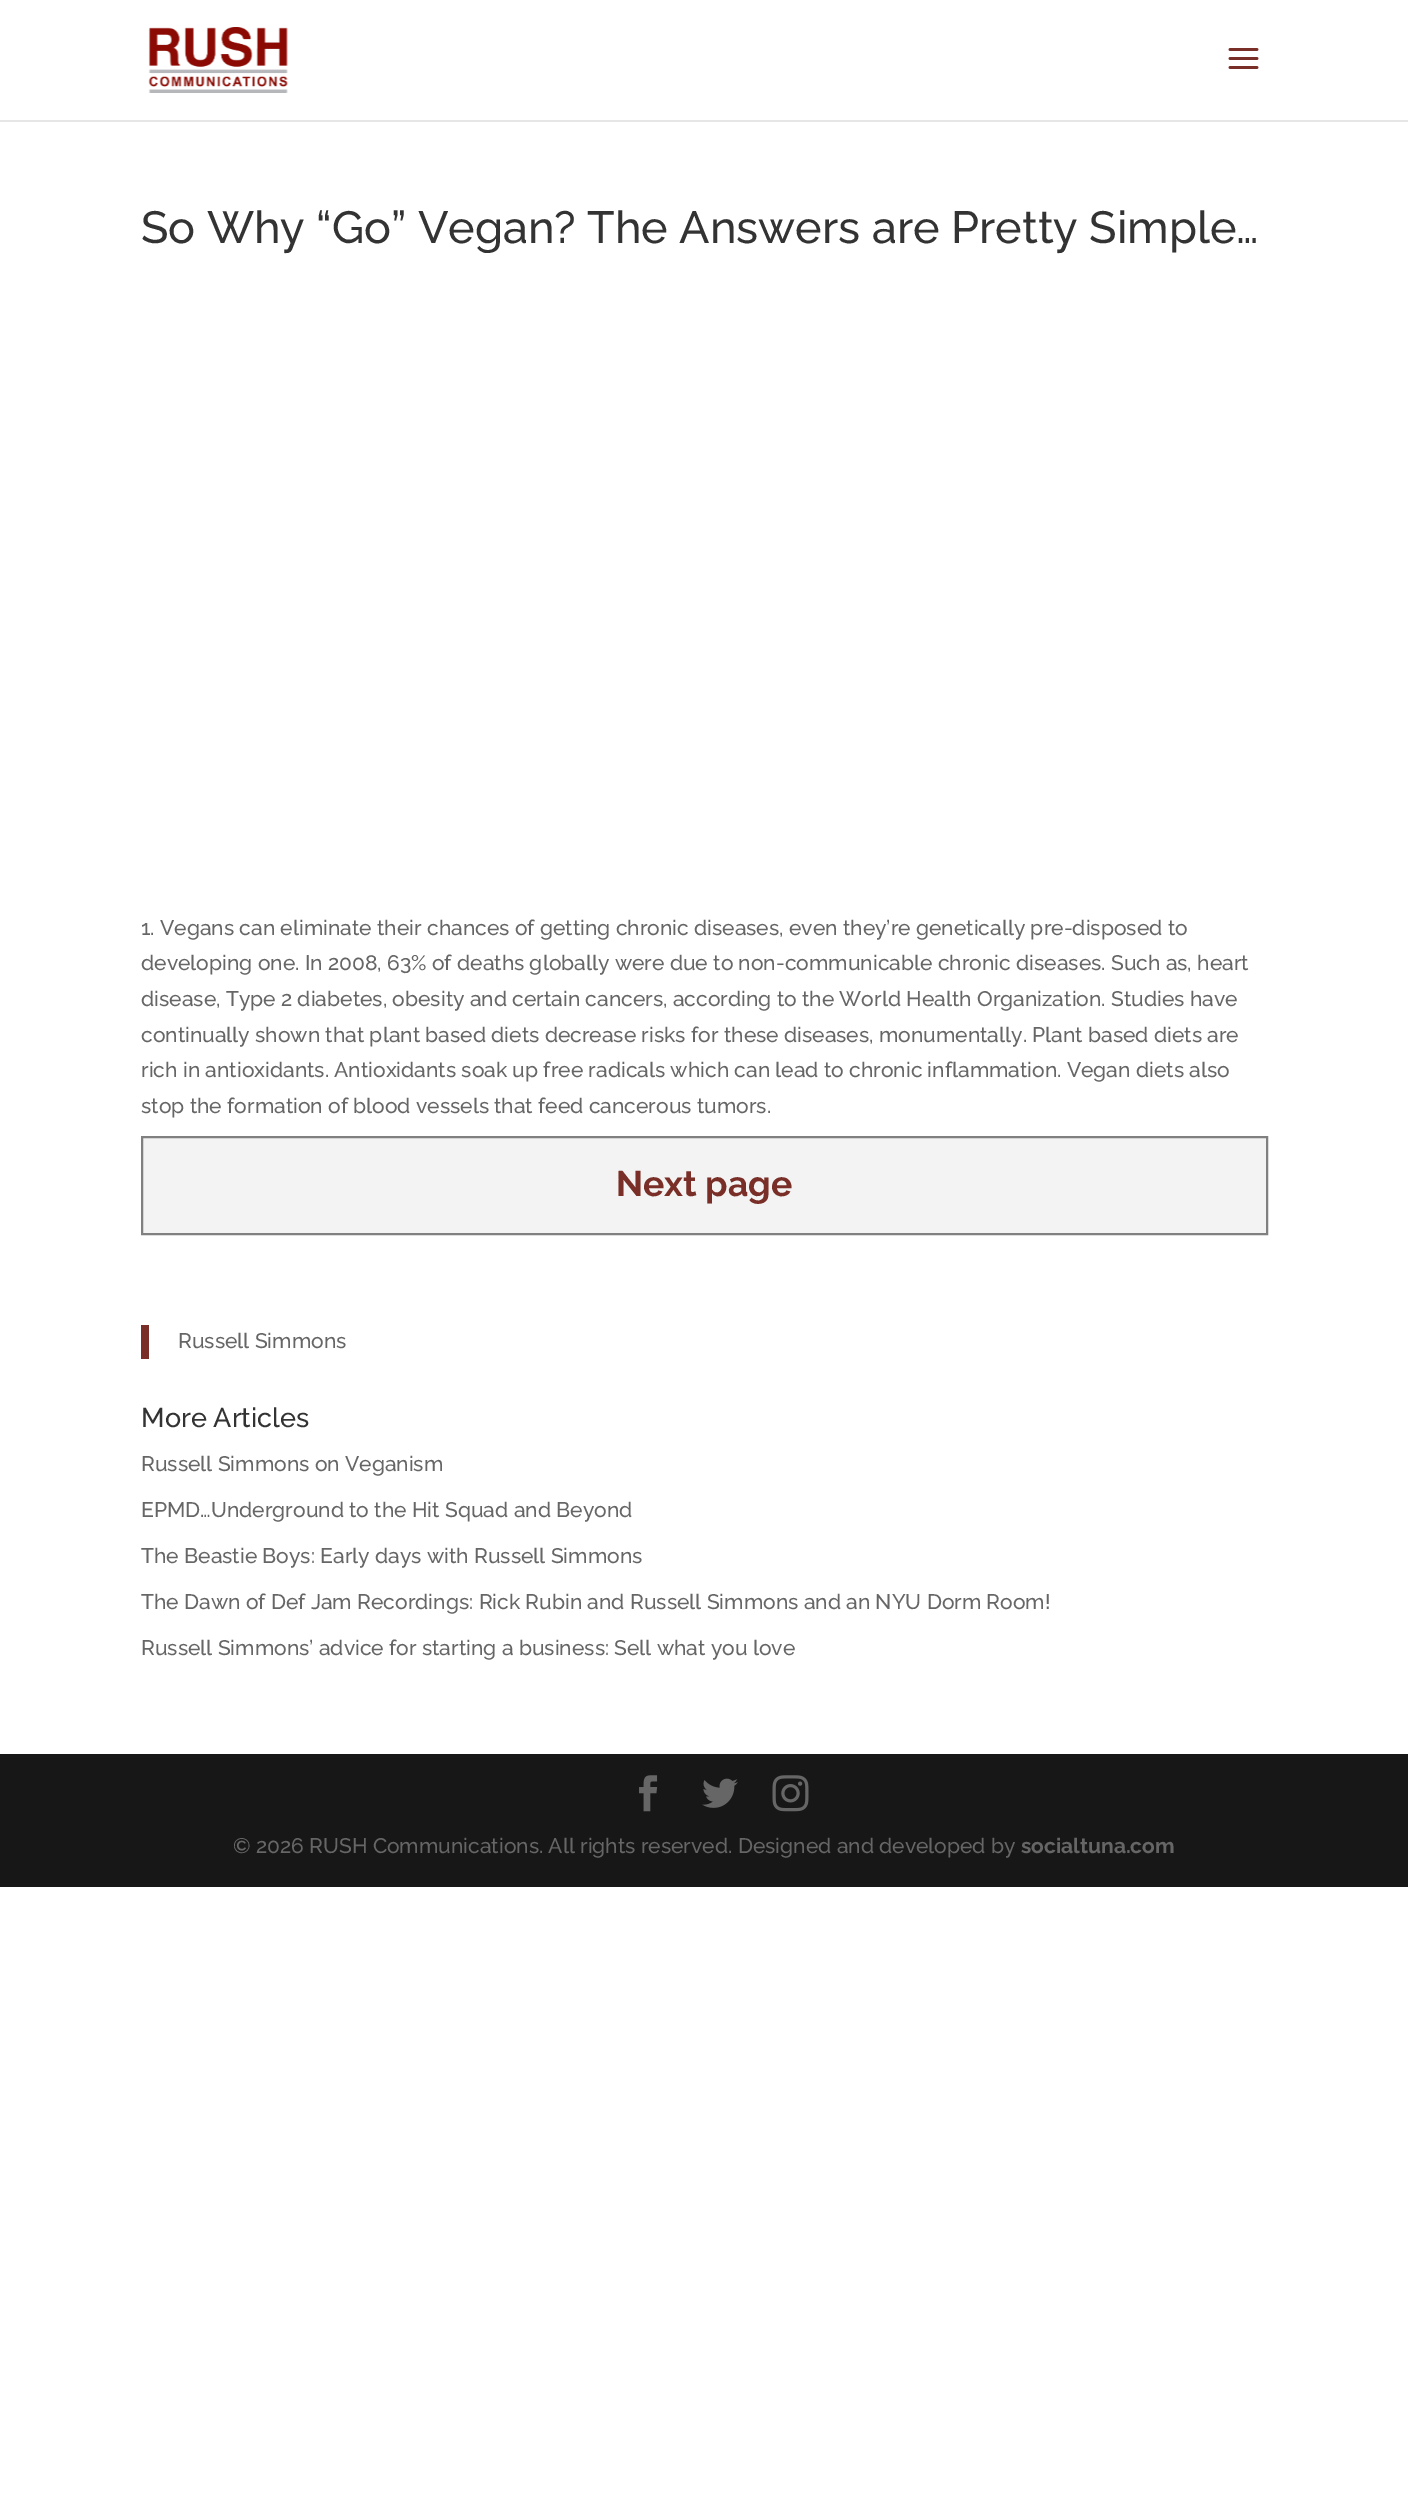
%!PS
<< /PageSize [1408 2498] >> setpagedevice
/rgb { dup -16 bitshift 255 div exch dup -8 bitshift 255 and 255 div exch 255 and 255 div setrgbcolor } def
/font { [ exch dup neg 0 0 3 -1 roll 0 0 ] selectfont } def
/text { moveto show } def
/picture { 5 dict begin { /h /w /y /x /name } { exch def } forall
  gsave x y translate w h scale
  w h 8 [w 0 0 h 0 0] name (r) file false 3 colorimage grestore end } def
0 2498 translate 1 -1 scale
4 setmiterlimit
/s1 { /Raleway-Medium 45 font 16#333333 rgb } def
/s2 { /Raleway-Medium 21 font 16#666666 rgb } def
/s3 { /Raleway-Bold 35.5 font 16#792F28 rgb } def
/s4 { /Raleway-Medium 27 font 16#333333 rgb } def
/s5 { /Raleway-Bold 21 font 16#666666 rgb } def
16#FFFFFF rgb
0 0 1408 2498 rectfill
16#E6E6E6 rgb
0 120 moveto 0 122 lineto 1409 122 lineto 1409 2 lineto 1408 2 lineto 1408 120 lineto closepath fill
(pic1.raw) 148 27 140 66 picture
(pic2.raw) 1228 48 31 21 picture
s1
(So Why “Go” Vegan? The Answers are Pretty Simple…) 141 243 text
s2
(1. Vegans can eliminate their chances of getting chronic diseases, even they’re genetically pre-disposed to) 141 935 text
(developing one. In 2008, 63% of deaths globally were due to non-communicable chronic diseases. Such as, heart) 141 970 text
(disease, Type 2 diabetes, obesity and certain cancers, according to the World Health Organization. Studies have) 141 1006 text
(continually shown that plant based diets decrease risks for these diseases, monumentally. Plant based diets are) 141 1042 text
(rich in antioxidants. Antioxidants soak up free radicals which can lead to chronic inflammation. Vegan diets also) 141 1077 text
(stop the formation of blood vessels that feed cancerous tumors.) 141 1113 text
16#F3F3F3 rgb
142 1137 moveto 1267 1137 lineto 1267 1234 lineto 142 1234 lineto closepath gsave fill grestore
16#808080 rgb
2 setlinewidth
stroke
s3
(Next page) 616 1196 text
141 1325 8 34 rectfill
s2
(Russell Simmons) 178 1348 text
s4
(More Articles) 141 1427 text
s2
(Russell Simmons on Veganism) 141 1471 text
(EPMD…Underground to the Hit Squad and Beyond) 141 1517 text
(The Beastie Boys: Early days with Russell Simmons) 141 1563 text
(The Dawn of Def Jam Recordings: Rick Rubin and Russell Simmons and an NYU Dorm Room!) 141 1609 text
(Russell Simmons’ advice for starting a business: Sell what you love) 141 1655 text
16#171717 rgb
0 1754 1408 133 rectfill
(pic3.raw) 639 1775 19 37 picture
(pic4.raw) 702 1778 36 30 picture
(pic5.raw) 772 1775 37 37 picture
s2
(© 2026 RUSH Communications. All rights reserved. Designed and developed by) 233 1853 text
s5
(socialtuna.com) 1021 1853 text
showpage
